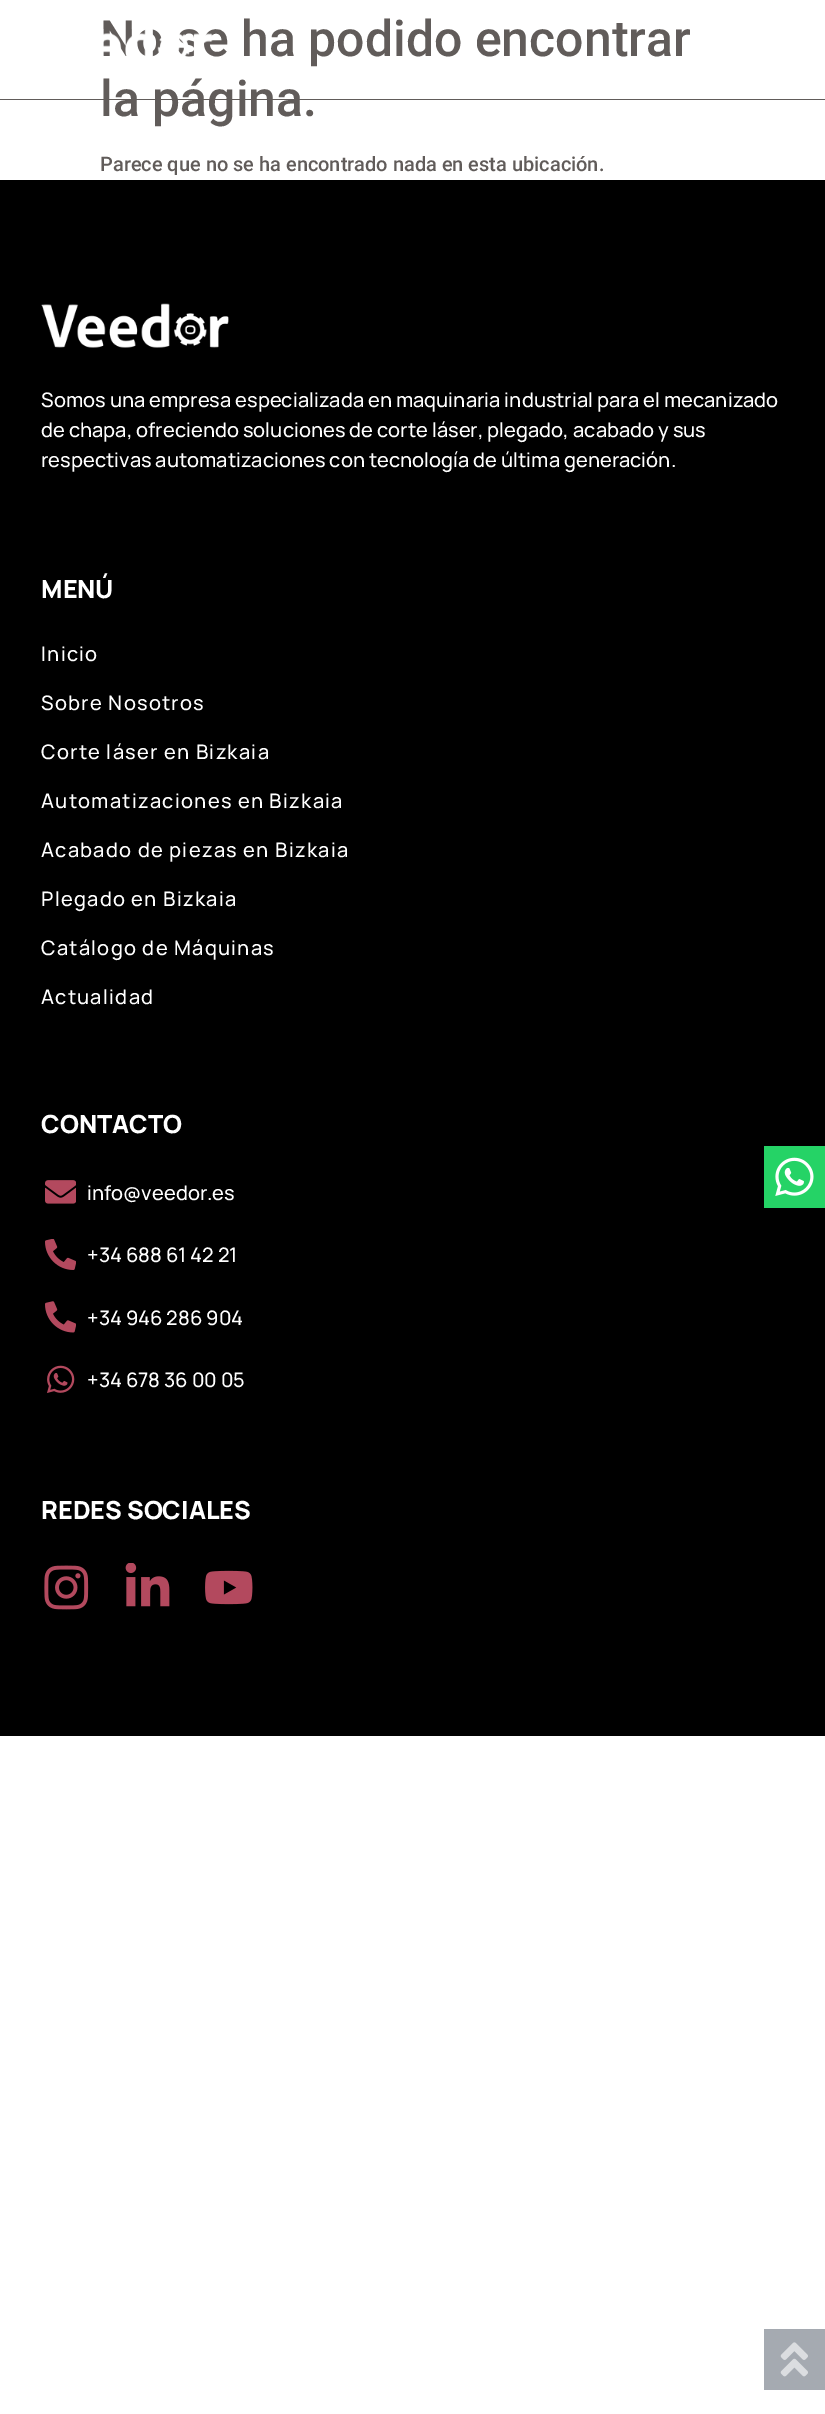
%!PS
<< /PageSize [825 2414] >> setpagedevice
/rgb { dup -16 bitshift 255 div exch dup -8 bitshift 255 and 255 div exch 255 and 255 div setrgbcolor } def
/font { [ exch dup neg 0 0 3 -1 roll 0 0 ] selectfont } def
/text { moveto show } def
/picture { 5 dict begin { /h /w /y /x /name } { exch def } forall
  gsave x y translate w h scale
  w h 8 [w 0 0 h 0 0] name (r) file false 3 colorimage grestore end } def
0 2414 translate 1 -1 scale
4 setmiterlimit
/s1 { /Roboto-Medium 50 font 16#615C5A rgb } def
/s2 { /Roboto-Medium 20 font 16#615C5A rgb } def
/s3 { /Manrope-Medium 20 font 16#FFFFFF rgb } def
/s4 { /Manrope-ExtraBold 25 font 16#FFFFFF rgb } def
16#FFFFFF rgb
0 0 825 2414 rectfill
s1
(No se ha podido encontrar) 100 56 text
(la página.) 100 116 text
s2
(Parece que no se ha encontrado nada en esta ubicación.) 100 171 text
0 99 825 1 rectfill
(pic1.raw) 103 29 110 28 picture
16#000000 rgb
0 180 825 1556 rectfill
(pic2.raw) 41 303 188 45 picture
s3
(Somos una empresa especializada en maquinaria industrial para el mecanizado) 41 407 text
(de chapa, ofreciendo soluciones de corte láser, plegado, acabado y sus) 41 437 text
(respectivas automatizaciones con tecnología de última generación.) 41 467 text
s4
(MENÚ) 41 598 text
/Manrope-Medium 20 font
41 661 moveto 1.25 0 (Inicio) ashow
41 710 moveto 1.25 0 (Sobre Nosotros) ashow
41 759 moveto 1.25 0 (Corte láser en Bizkaia) ashow
41 808 moveto 1.25 0 (Automatizaciones en Bizkaia) ashow
41 857 moveto 1.25 0 (Acabado de piezas en Bizkaia) ashow
41 906 moveto 1.25 0 (Plegado en Bizkaia) ashow
41 955 moveto 1.25 0 (Catálogo de Máquinas) ashow
41 1004 moveto 1.25 0 (Actualidad) ashow
s4
(CONTACTO) 41 1133 text
(pic3.raw) 45 1180 31 24 picture
s3
(info@veedor.es) 87 1200 text
(pic4.raw) 45 1239 31 31 picture
(+34 688 61 42 21) 87 1262 text
(pic5.raw) 45 1301 31 32 picture
(+34 946 286 904) 87 1325 text
(pic6.raw) 47 1365 28 28 picture
(+34 678 36 00 05) 87 1387 text
16#25D366 rgb
764 1146 61 62 rectfill
(pic7.raw) 775 1157 39 39 picture
s4
(REDES SOCIALES) 41 1519 text
(pic8.raw) 44 1565 45 45 picture
(pic9.raw) 125 1563 45 44 picture
(pic10.raw) 205 1570 48 35 picture
16#A5AAB1 rgb
764 2329 61 61 rectfill
(pic11.raw) 780 2342 28 35 picture
showpage
